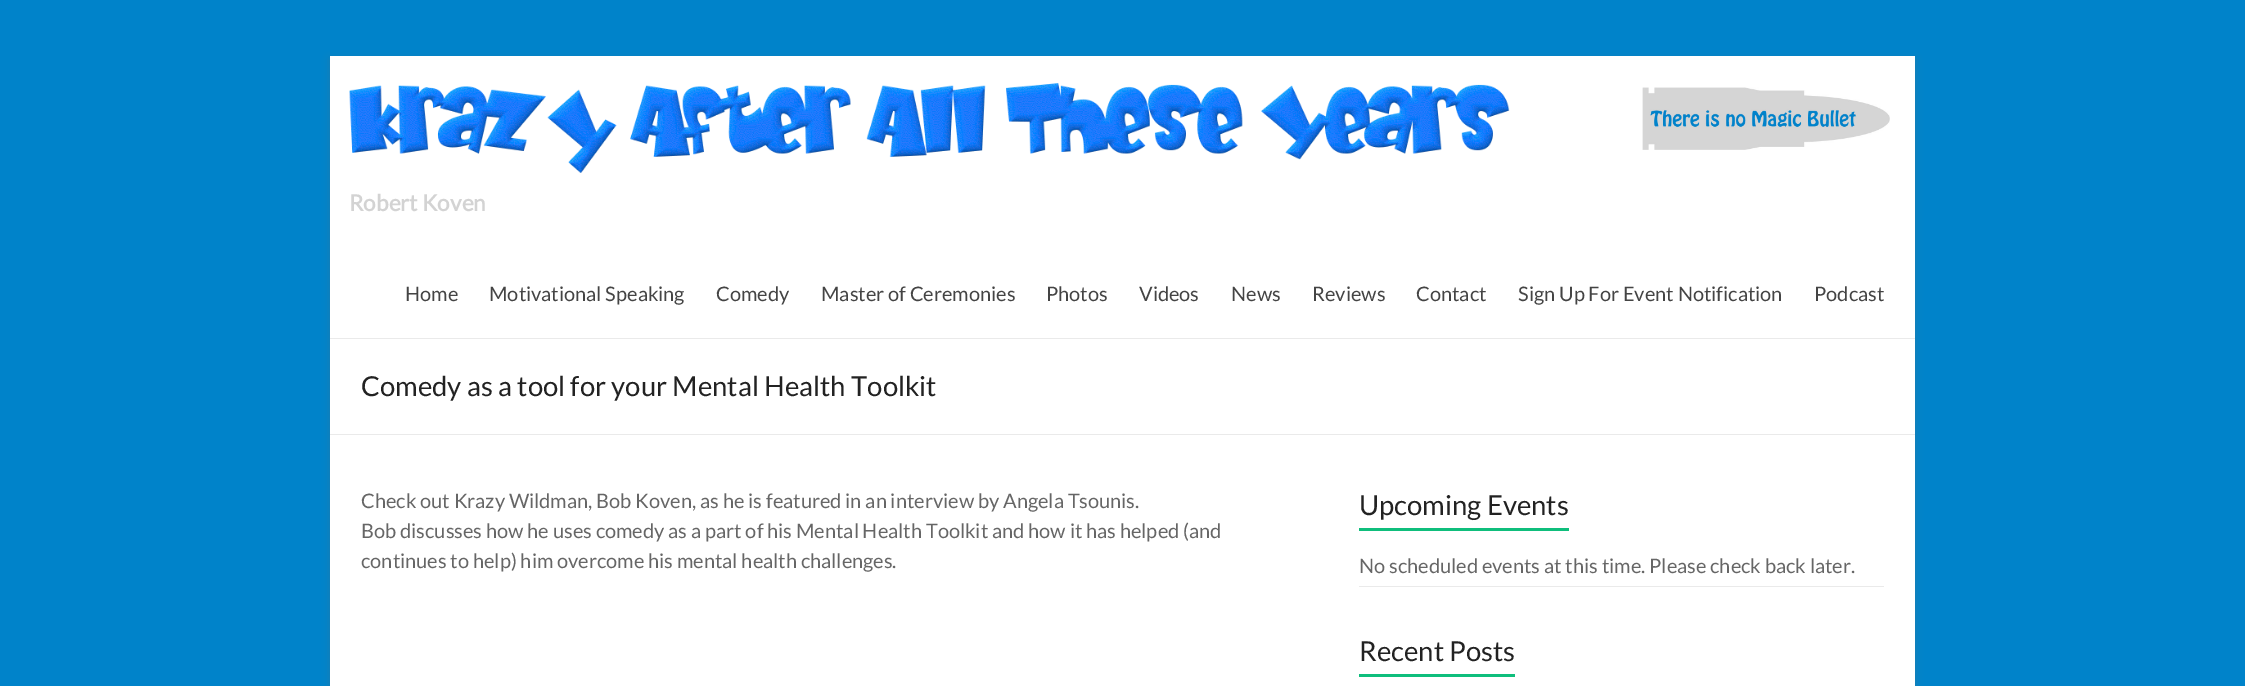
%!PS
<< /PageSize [2245 686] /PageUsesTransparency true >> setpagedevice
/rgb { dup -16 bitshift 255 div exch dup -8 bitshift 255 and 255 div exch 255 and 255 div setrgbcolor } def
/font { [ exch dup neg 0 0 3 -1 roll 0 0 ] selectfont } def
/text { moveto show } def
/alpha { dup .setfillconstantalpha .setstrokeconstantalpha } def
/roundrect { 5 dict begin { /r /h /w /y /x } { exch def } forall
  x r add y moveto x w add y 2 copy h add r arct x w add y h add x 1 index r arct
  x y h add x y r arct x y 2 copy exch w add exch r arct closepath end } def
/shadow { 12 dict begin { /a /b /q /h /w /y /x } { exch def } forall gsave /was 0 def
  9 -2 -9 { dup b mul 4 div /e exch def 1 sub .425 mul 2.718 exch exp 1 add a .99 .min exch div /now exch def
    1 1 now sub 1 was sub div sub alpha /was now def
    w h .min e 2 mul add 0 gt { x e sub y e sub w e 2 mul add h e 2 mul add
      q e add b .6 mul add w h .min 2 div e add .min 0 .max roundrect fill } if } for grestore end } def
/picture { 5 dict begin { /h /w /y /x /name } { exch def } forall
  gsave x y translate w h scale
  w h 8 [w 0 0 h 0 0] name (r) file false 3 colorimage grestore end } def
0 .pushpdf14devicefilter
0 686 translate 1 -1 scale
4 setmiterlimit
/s1 { /Lato-Bold 22.5 font 16#D3D3D3 rgb } def
/s2 { /Lato-Regular 20 font 16#444444 rgb } def
/s3 { /Lato-Regular 27.5 font 16#222222 rgb } def
/s4 { /Lato-Regular 20 font 16#666666 rgb } def
16#0083CA rgb
0 0 2245 686 rectfill
16#646464 rgb
330 59 1585 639 0 4 0.3 shadow
16#FFFFFF rgb
330 56 1585 630 rectfill
(pic1.raw) 1642 87 248 63 picture
(pic2.raw) 349 83 1161 90 picture
s1
(Robert Koven) 349 211 text
16#EAEAEA rgb
330 338 1585 1 rectfill
s2
(Home) 405 301 text
(Motivational Speaking) 489 301 text
(Comedy) 716 301 text
(Master of Ceremonies) 821 301 text
(Photos) 1046 301 text
(Videos) 1139 301 text
(News) 1231 301 text
(Reviews) 1312 301 text
(Contact) 1416 301 text
(Sign Up For Event Notification) 1518 301 text
(Podcast) 1814 301 text
16#EAEAEA rgb
330 434 1585 1 rectfill
s3
(Comedy as a tool for your Mental Health Toolkit) 361 396 text
s4
(Check out Krazy Wildman, Bob Koven, as he is featured in an interview by Angela Tsounis.) 361 508 text
(Bob discusses how he uses comedy as a part of his Mental Health Toolkit and how it has helped \(and) 361 538 text
(continues to help\) him overcome his mental health challenges.) 361 568 text
s3
(Upcoming Events) 1359 515 text
16#0FBE7C rgb
1359 528 210 3 rectfill
16#EAEAEA rgb
1359 586 525 1 rectfill
s4
(No scheduled events at this time. Please check back later.) 1359 573 text
s3
(Recent Posts) 1359 661 text
16#0FBE7C rgb
1359 674 156 3 rectfill
.poppdf14devicefilter showpage
